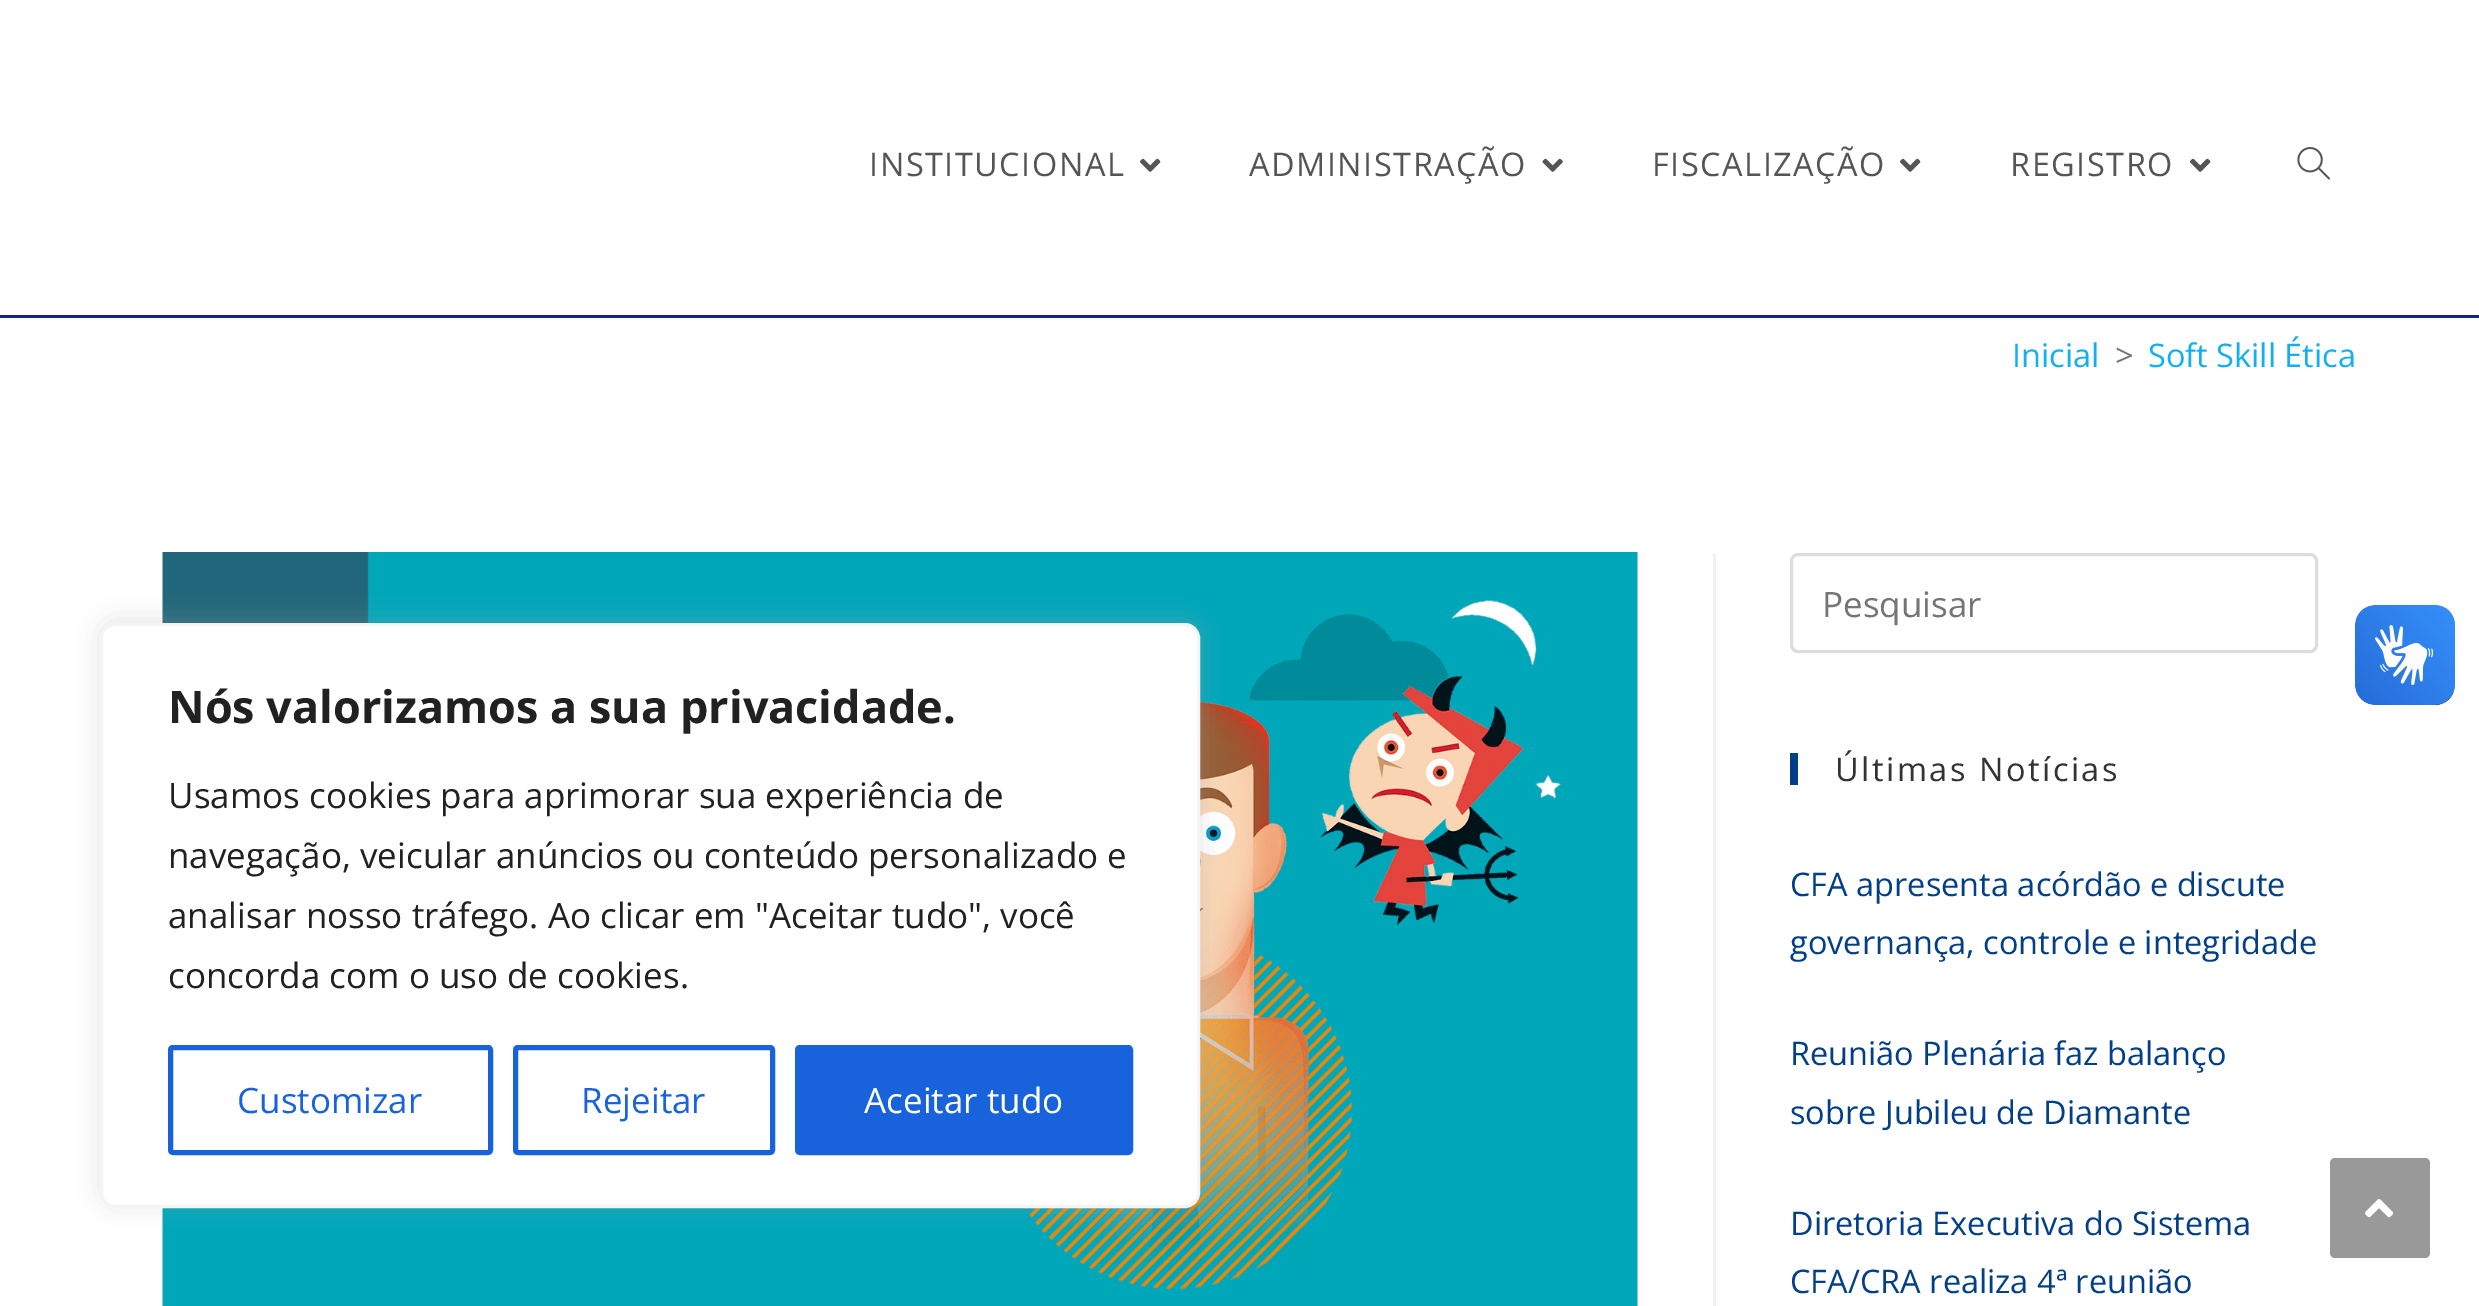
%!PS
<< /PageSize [2479 1306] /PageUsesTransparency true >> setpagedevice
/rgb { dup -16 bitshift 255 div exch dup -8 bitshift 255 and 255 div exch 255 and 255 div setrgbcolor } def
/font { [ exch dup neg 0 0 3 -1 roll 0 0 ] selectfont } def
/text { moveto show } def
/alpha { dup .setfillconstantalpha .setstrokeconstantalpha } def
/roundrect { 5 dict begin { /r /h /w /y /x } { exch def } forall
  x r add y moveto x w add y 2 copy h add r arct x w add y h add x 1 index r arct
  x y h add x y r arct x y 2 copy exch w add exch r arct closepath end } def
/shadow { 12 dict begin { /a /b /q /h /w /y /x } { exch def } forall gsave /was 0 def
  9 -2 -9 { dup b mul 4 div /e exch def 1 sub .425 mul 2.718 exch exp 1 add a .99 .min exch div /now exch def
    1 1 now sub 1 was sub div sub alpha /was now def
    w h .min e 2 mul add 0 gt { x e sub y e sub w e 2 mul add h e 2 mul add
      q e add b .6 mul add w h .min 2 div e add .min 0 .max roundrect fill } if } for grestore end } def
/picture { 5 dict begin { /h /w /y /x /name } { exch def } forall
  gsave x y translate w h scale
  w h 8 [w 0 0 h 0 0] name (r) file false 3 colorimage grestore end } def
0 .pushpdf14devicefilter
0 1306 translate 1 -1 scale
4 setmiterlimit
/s1 { /OpenSans-Regular 32.5 font 16#13AFF0 rgb } def
/s2 { /OpenSans-Regular 32.5 font 16#757575 rgb } def
/s3 { /OpenSans-Regular 35 font 16#757575 rgb } def
/s4 { /OpenSans-Regular 32.5 font 16#023F88 rgb } def
/s5 { /OpenSans-Bold 45 font 16#212121 rgb } def
/s6 { /OpenSans-Regular 35 font 16#212121 rgb } def
/s7 { /OpenSans-Regular 35 font 16#1863DC rgb } def
/s8 { /OpenSans-Regular 35 font 16#FFFFFF rgb } def
16#FFFFFF rgb
0 0 2479 1306 rectfill
16#15267B rgb
0 315 2479 3 rectfill
/OpenSans-Regular 32.5 font
16#555555 rgb
869 176 moveto 1.5 0 (INSTITUCIONAL) ashow
(pic1.raw) 1140 158 21 14 picture
1249 176 moveto 1.5 0 (ADMINISTRAÇÃO) ashow
(pic2.raw) 1542 158 21 14 picture
1652 176 moveto 1.5 0 (FISCALIZAÇÃO) ashow
(pic1.raw) 1900 158 21 14 picture
2010 176 moveto 1.5 0 (REGISTRO) ashow
(pic1.raw) 2190 158 21 14 picture
(pic3.raw) 2297 147 33 33 picture
s1
(Inicial) 2012 367 text
s2
(>) 2115 367 text
s1
(Soft Skill Ética) 2148 367 text
16#F1F1F1 rgb
1713 553 3 753 rectfill
(pic4.raw) 162 552 1476 754 picture
16#DDDDDD rgb
3 setlinewidth
1791.5 554.5 525 97 6.5 roundrect stroke
s3
(Pesquisar) 1822 617 text
16#023F88 rgb
1790 753 8 32 rectfill
/OpenSans-Regular 32.5 font
16#333333 rgb
1835 781 moveto 2.5 0 (Últimas Notícias) ashow
s4
(CFA apresenta acórdão e discute) 1790 896 text
(governança, controle e integridade) 1790 954 text
(Reunião Plenária faz balanço) 1790 1065 text
(sobre Jubileu de Diamante) 1790 1124 text
(Diretoria Executiva do Sistema) 1790 1235 text
(CFA/CRA realiza 4ª reunião) 1790 1293 text
(pic5.raw) 2355 605 100 100 picture
(pic6.raw) 2355 605 100 100 picture
16#ACABAB rgb
100 620 1100 585 15 12.5 0.3 shadow
16#FFFFFF rgb
101.5 624.5 1097 582 13.5 roundrect gsave fill grestore
16#F4F4F4 rgb
stroke
s5
(Nós valorizamos a sua privacidade.) 168 723 text
s6
(Usamos cookies para aprimorar sua experiência de) 168 808 text
(navegação, veicular anúncios ou conteúdo personalizado e) 168 868 text
(analisar nosso tráfego. Ao clicar em "Aceitar tudo", você) 168 928 text
(concorda com o uso de cookies.) 168 988 text
16#1863DC rgb
5 setlinewidth
170.5 1047.5 320 105 2.5 roundrect stroke
(Customizar) 237 1113 text
515.5 1047.5 257 105 2.5 roundrect stroke
(Rejeitar) 581 1113 text
797.5 1047.5 333 105 2.5 roundrect gsave fill grestore
stroke
s8
(Aceitar tudo) 864 1113 text
16#999999 rgb
2330 1158 100 100 5 roundrect fill
(pic7.raw) 2365 1199 29 19 picture
.poppdf14devicefilter showpage
